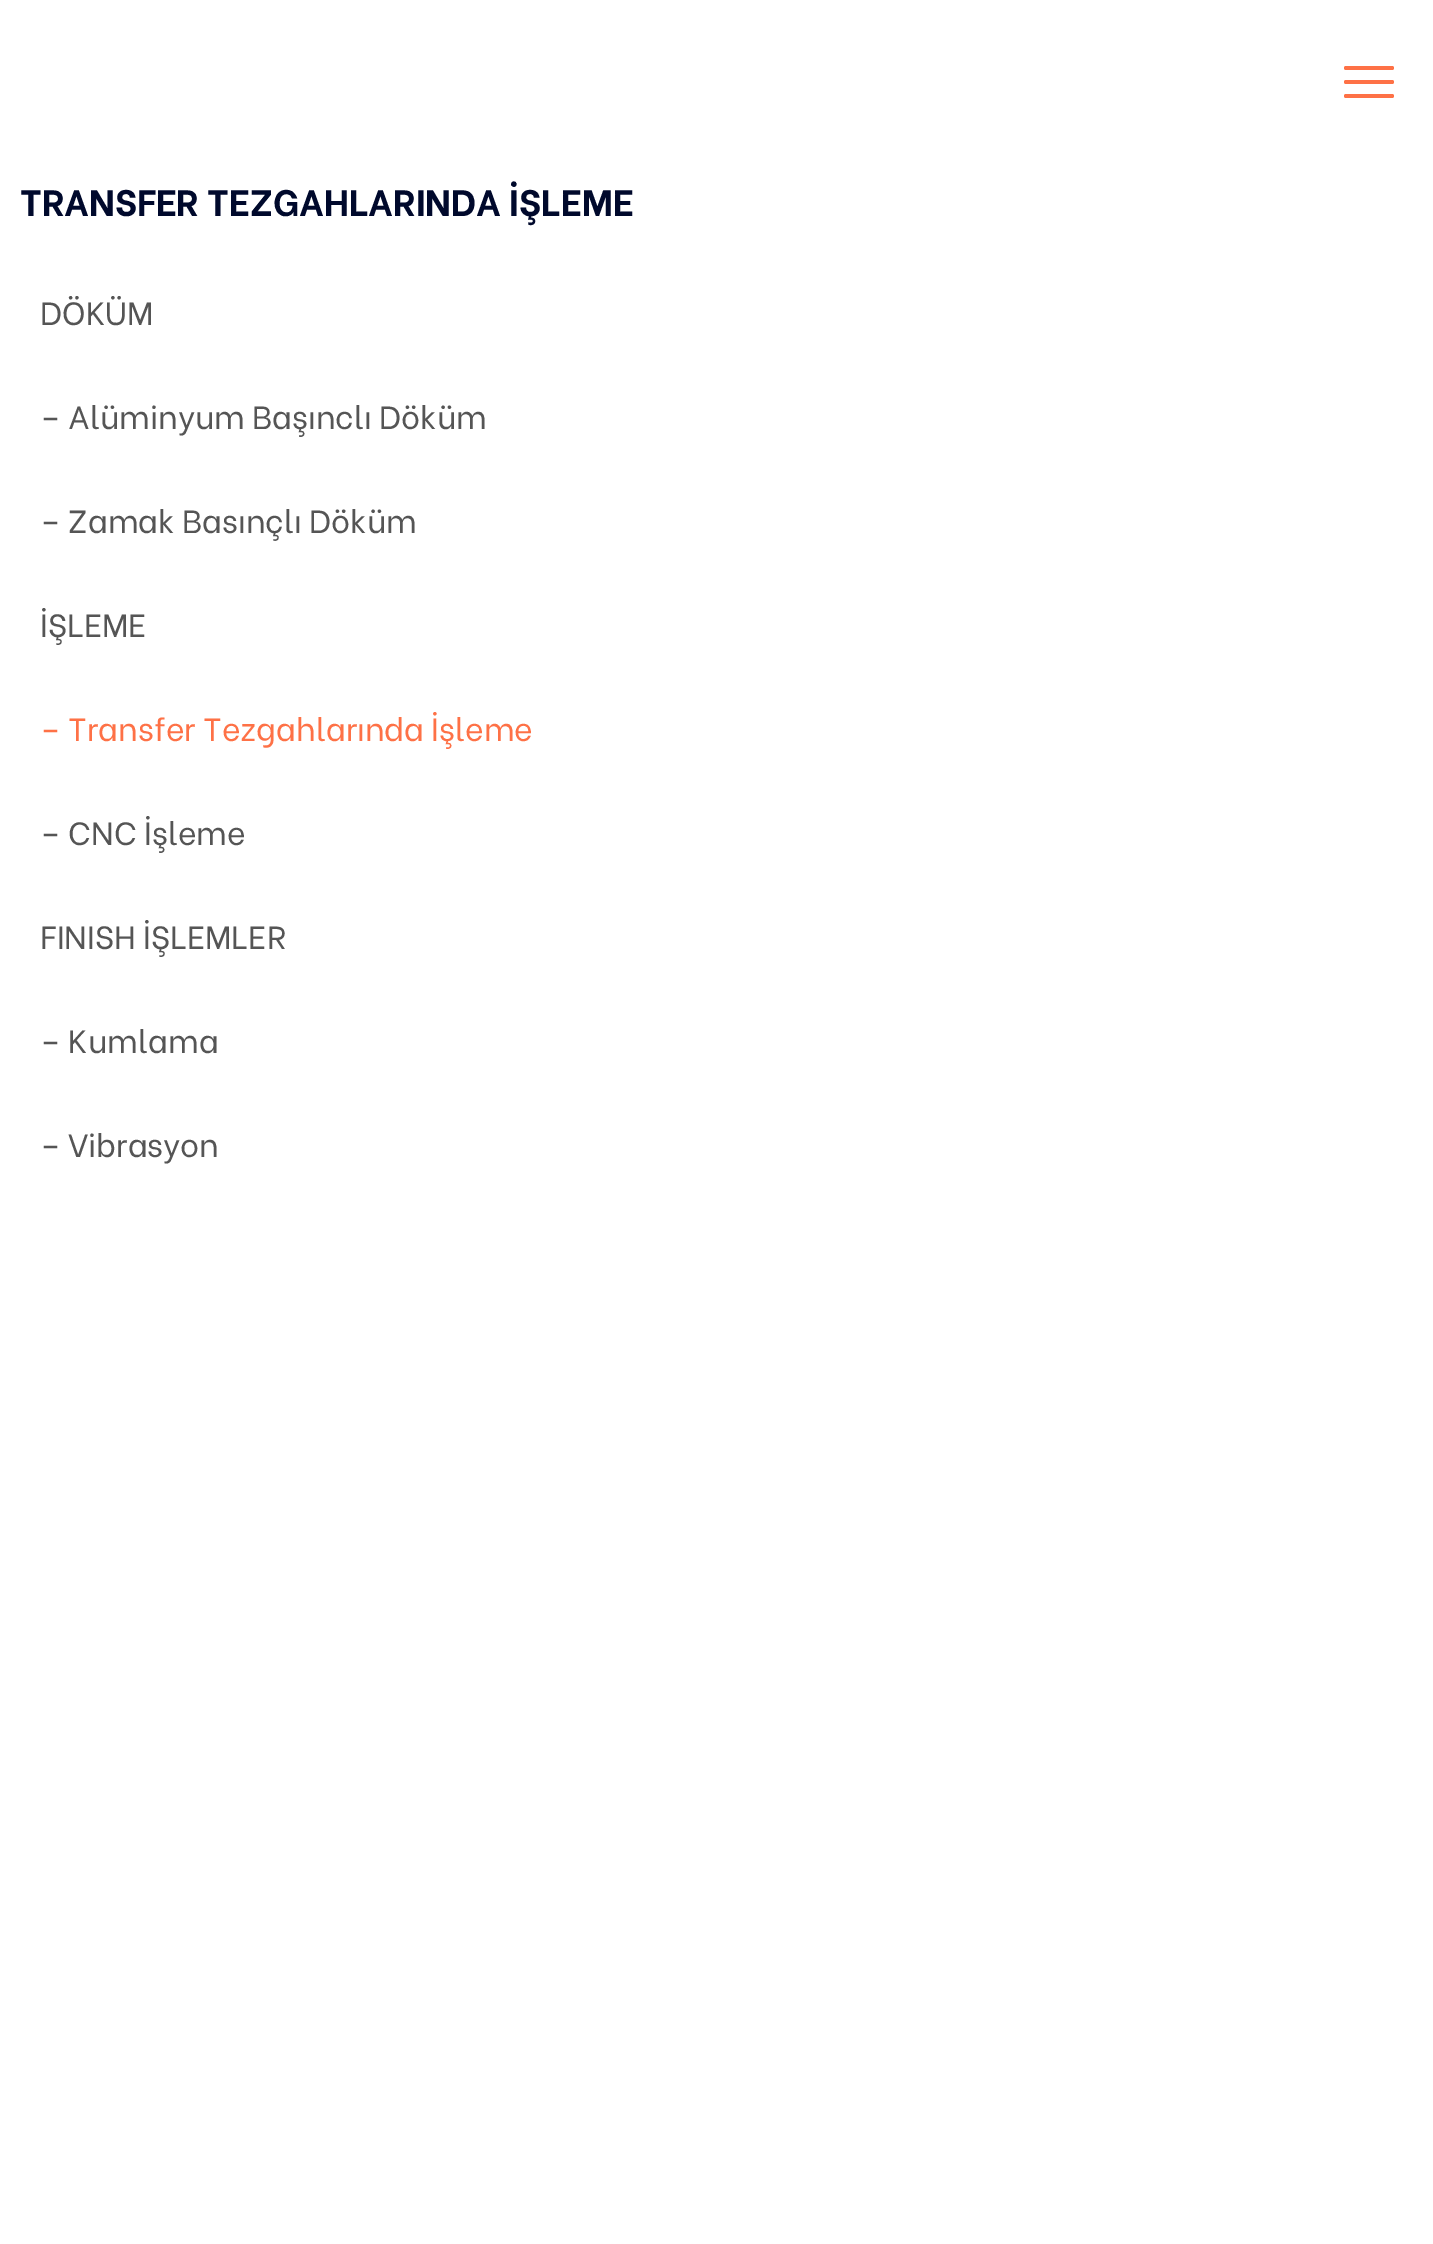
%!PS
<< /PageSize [1433 2244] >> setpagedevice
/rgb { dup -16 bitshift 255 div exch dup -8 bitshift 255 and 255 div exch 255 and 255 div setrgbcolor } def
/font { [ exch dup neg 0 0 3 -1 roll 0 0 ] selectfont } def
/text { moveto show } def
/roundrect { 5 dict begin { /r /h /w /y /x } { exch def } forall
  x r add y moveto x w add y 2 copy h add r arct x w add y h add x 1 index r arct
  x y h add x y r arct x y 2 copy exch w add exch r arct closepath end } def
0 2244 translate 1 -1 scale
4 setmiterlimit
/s1 { /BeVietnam-Bold 36.75 font 16#00092C rgb } def
/s2 { /BeVietnam-Regular 32 font 16#555555 rgb } def
/s3 { /BeVietnam-Regular 32 font 16#FE7146 rgb } def
16#FFFFFF rgb
0 0 1433 2244 rectfill
16#FE7146 rgb
1344 66 50 4 2 roundrect fill
1344 80 50 4 2 roundrect fill
1344 94 50 4 2 roundrect fill
s1
(TRANSFER TEZGAHLARINDA İŞLEME) 20 216 text
s2
(DÖKÜM) 40 325 text
(– Alüminyum Başınclı Döküm) 40 429 text
(– Zamak Basınçlı Döküm) 40 533 text
(İŞLEME) 40 637 text
s3
(– Transfer Tezgahlarında İşleme) 40 741 text
s2
(– CNC İşleme) 40 845 text
(FINISH İŞLEMLER) 40 949 text
(– Kumlama) 40 1053 text
(– Vibrasyon) 40 1157 text
showpage
